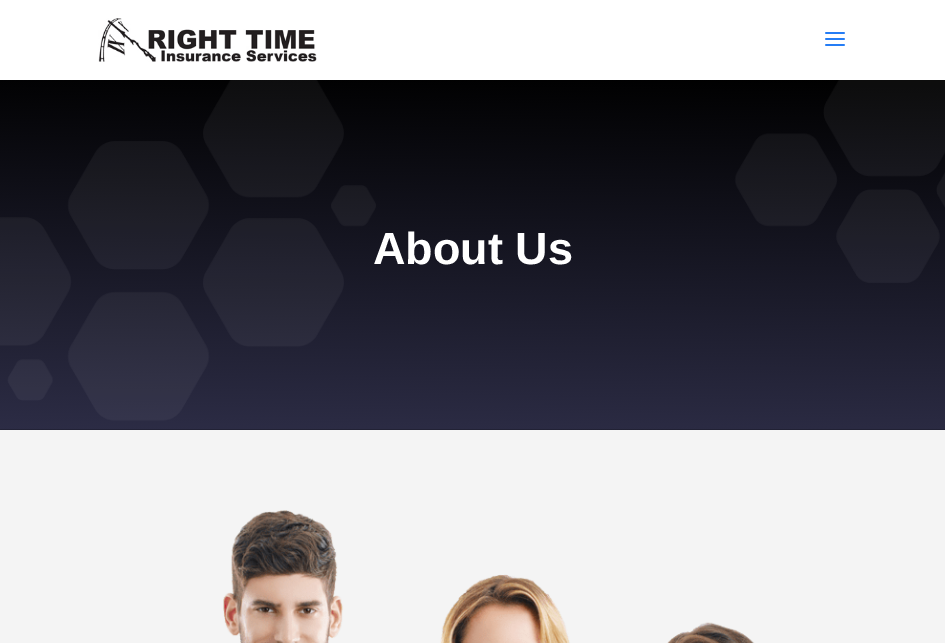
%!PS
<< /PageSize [945 643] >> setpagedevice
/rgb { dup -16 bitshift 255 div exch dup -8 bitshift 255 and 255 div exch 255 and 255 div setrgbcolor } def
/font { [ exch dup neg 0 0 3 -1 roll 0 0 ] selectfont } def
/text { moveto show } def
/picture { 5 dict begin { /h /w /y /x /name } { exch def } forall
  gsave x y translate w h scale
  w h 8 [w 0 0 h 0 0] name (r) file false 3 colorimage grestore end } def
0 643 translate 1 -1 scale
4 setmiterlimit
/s1 { /LiberationSans-Bold 45 font 16#FFFFFF rgb } def
16#FFFFFF rgb
0 0 945 643 rectfill
(pic1.raw) 98 18 219 44 picture
(pic2.raw) 825 32 20 14 picture
(pic3.raw) 0 80 945 350 picture
s1
(About Us) 373 264 text
16#F4F4F4 rgb
0 430 945 213 rectfill
(pic4.raw) 223 510 532 133 picture
showpage
